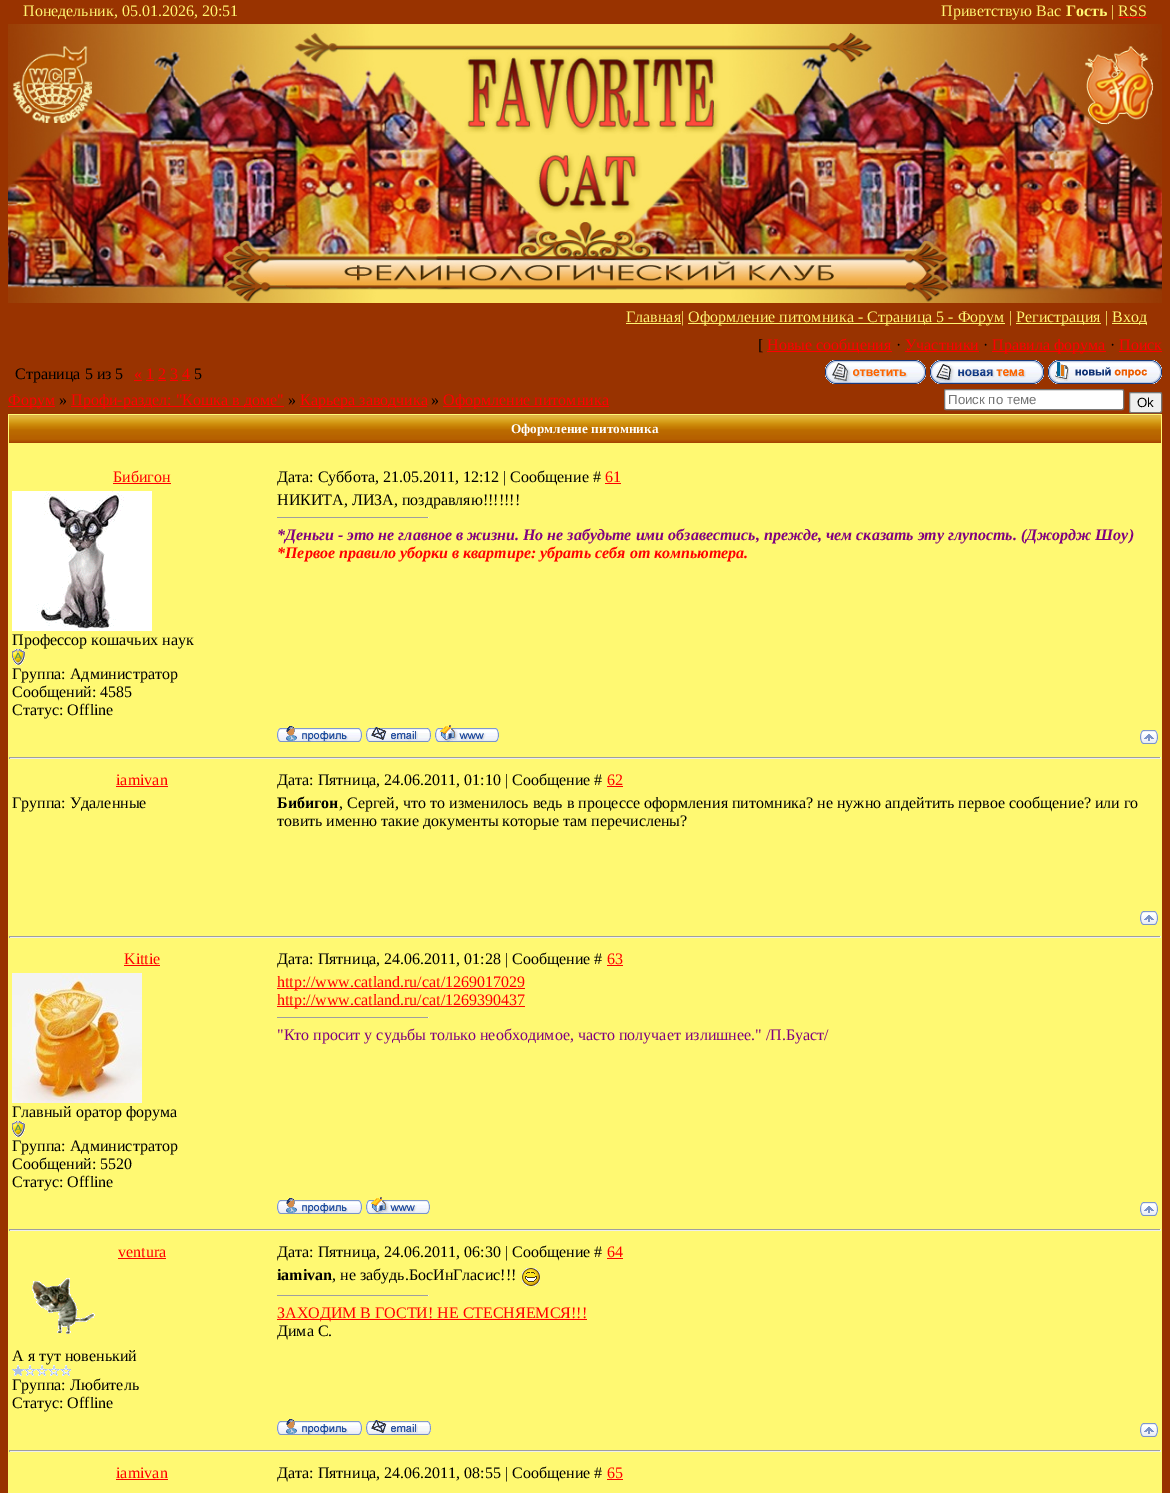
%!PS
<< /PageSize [1170 1493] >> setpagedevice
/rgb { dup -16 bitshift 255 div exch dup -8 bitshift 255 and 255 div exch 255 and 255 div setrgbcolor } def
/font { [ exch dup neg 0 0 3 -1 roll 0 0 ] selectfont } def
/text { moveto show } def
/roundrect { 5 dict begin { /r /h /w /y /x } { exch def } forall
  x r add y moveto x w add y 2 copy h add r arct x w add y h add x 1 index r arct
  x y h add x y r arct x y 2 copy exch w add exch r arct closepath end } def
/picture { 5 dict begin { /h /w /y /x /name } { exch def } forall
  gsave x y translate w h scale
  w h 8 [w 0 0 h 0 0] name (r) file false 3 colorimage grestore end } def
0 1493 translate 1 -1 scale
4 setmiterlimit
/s1 { /LiberationSerif-Regular 16 font 16#FFF572 rgb } def
/s2 { /LiberationSerif-Bold 16 font 16#FFF572 rgb } def
/s3 { /LiberationSerif-Regular 16 font 16#000000 rgb } def
/s4 { /LiberationSerif-Regular 16 font 16#FF0000 rgb } def
/s5 { /LiberationSans-Regular 13.25 font 16#757575 rgb } def
/s6 { /LiberationSans-Regular 13.25 font 16#000000 rgb } def
/s7 { /LiberationSerif-Bold 13.25 font 16#FFFFFF rgb } def
/s8 { /LiberationSerif-BoldItalic 16 font 16#800080 rgb } def
/s9 { /LiberationSerif-BoldItalic 16 font 16#FF0000 rgb } def
/s10 { /LiberationSerif-Bold 16 font 16#000000 rgb } def
/s11 { /LiberationSerif-Regular 16 font 16#800080 rgb } def
16#993300 rgb
0 0 1170 1493 rectfill
s1
(Понедельник, 05.01.2026, 20:51) 23 16 text
(Приветствую Вас) 941 16 text
s2
(Гость) 1066 16 text
s1
(| RSS) 1111 16 text
16#FF0000 rgb
1119 17 28 1 rectfill
(pic1.raw) 8 24 1154 279 picture
16#FFF572 rgb
626 323 55 1 rectfill
(Главная|) 626 322 text
688 323 317 1 rectfill
(Оформление питомника - Страница 5 - Форум |) 688 322 text
1016 323 85 1 rectfill
(Регистрация |) 1016 322 text
1112 323 35 1 rectfill
(Вход) 1112 322 text
s3
([) 758 350 text
16#FF0000 rgb
767 351 125 1 rectfill
(Новые сообщения) 767 350 text
s3
(·) 896 350 text
s4
(Участники) 905 350 text
905 351 74 1 rectfill
s3
(·) 983 350 text
16#FF0000 rgb
992 351 114 1 rectfill
(Правила форума) 992 350 text
s3
(·) 1110 350 text
s4
(Поиск) 1119 350 text
1119 351 43 1 rectfill
s3
(Страница 5 из 5) 15 379 text
s4
(« 1 2 3 4) 134 379 text
134 380 8 1 rectfill
s3
(5) 194 379 text
16#FF0000 rgb
146 380 8 1 rectfill
158 380 8 1 rectfill
170 380 8 1 rectfill
182 380 8 1 rectfill
(pic2.raw) 825 360 101 24 picture
(pic3.raw) 930 360 114 24 picture
(pic4.raw) 1048 360 114 24 picture
8 406 47 1 rectfill
(Форум) 8 405 text
s3
(») 59 405 text
16#FF0000 rgb
71 406 213 1 rectfill
(Профи-раздел: "Кошка в доме") 71 405 text
s3
(») 288 405 text
16#FF0000 rgb
300 406 127 1 rectfill
(Карьера заводчика) 300 405 text
s3
(») 431 405 text
16#FF0000 rgb
443 406 166 1 rectfill
(Оформление питомника) 443 405 text
16#FFFFFF rgb
944.5 389.5 179 20 1.5 roundrect gsave fill grestore
16#767676 rgb
stroke
s5
(Поиск по теме) 948 404 text
16#EFEFEF rgb
1129.5 392.5 32 20 1.5 roundrect gsave fill grestore
16#767676 rgb
stroke
s6
(Ok) 1137 407 text
16#FFF972 rgb
8 414 1154 1079 rectfill
(pic5.raw) 9 415 1152 28 picture
s7
(Оформление питомника) 511 433 text
s4
(Бибигон) 113 482 text
113 483 58 1 rectfill
s3
(Дата: Суббота, 21.05.2011, 12:12 | Сообщение #) 277 482 text
s4
(61) 605 482 text
605 483 16 1 rectfill
s3
(НИКИТА, ЛИЗА, поздравляю!!!!!!!) 277 505 text
16#9F9F9F rgb
277 517 152 1 rectfill
16#EEEEEE rgb
428 517 1 1 rectfill
s8
(*Деньги - это не главное в жизни. Но не забудьте ими обзавестись, прежде, чем сказать эту глупость. \(Джордж Шоу\)) 277 540 text
s9
(*Первое правило уборки в квартире: убрать себя от компьютера.) 277 558 text
(pic6.raw) 12 491 140 140 picture
s3
(Профессор кошачьих наук) 12 645 text
(pic7.raw) 12 649 13 16 picture
(Группа: Администратор) 12 679 text
(Сообщений: 4585) 12 697 text
(Статус: Offline) 12 715 text
(pic8.raw) 277 726 85 16 picture
(pic9.raw) 366 727 65 15 picture
(pic10.raw) 435 725 64 17 picture
(pic11.raw) 1140 730 18 14 picture
16#9F9F9F rgb
9 757 1152 1 rectfill
16#EEEEEE rgb
1160 757 1 2 rectfill
9 758 1152 1 rectfill
16#9F9F9F rgb
9 757 1 2 rectfill
s4
(iamivan) 116 785 text
116 786 52 1 rectfill
s3
(Дата: Пятница, 24.06.2011, 01:10 | Сообщение #) 277 785 text
s4
(62) 607 785 text
607 786 16 1 rectfill
s3
(Группа: Удаленные) 12 808 text
s10
(Бибигон) 277 808 text
s3
(, Сергей, что то изменилось ведь в процессе оформления питомника? не нужно апдейтить первое сообщение? или го) 339 808 text
(товить именно такие документы которые там перечислены?) 277 826 text
(pic11.raw) 1140 911 18 14 picture
16#9F9F9F rgb
9 936 1152 1 rectfill
16#EEEEEE rgb
1160 936 1 2 rectfill
9 937 1152 1 rectfill
16#9F9F9F rgb
9 936 1 2 rectfill
s4
(Kittie) 124 964 text
124 965 36 1 rectfill
s3
(Дата: Пятница, 24.06.2011, 01:28 | Сообщение #) 277 964 text
s4
(63) 607 964 text
607 965 16 1 rectfill
277 988 248 1 rectfill
(http://www.catland.ru/cat/1269017029) 277 987 text
277 1006 248 1 rectfill
(http://www.catland.ru/cat/1269390437) 277 1005 text
16#9F9F9F rgb
277 1017 152 1 rectfill
16#EEEEEE rgb
428 1017 1 1 rectfill
s11
("Кто просит у судьбы только необходимое, часто получает излишнее." /П.Буаст/) 277 1040 text
(pic12.raw) 12 973 130 130 picture
s3
(Главный оратор форума) 12 1117 text
(pic7.raw) 12 1121 13 16 picture
(Группа: Администратор) 12 1151 text
(Сообщений: 5520) 12 1169 text
(Статус: Offline) 12 1187 text
(pic8.raw) 277 1198 85 16 picture
(pic10.raw) 366 1197 64 17 picture
(pic11.raw) 1140 1202 18 14 picture
16#9F9F9F rgb
9 1229 1152 1 rectfill
16#EEEEEE rgb
1160 1229 1 2 rectfill
9 1230 1152 1 rectfill
16#9F9F9F rgb
9 1229 1 2 rectfill
s4
(ventura) 118 1257 text
118 1258 48 1 rectfill
s3
(Дата: Пятница, 24.06.2011, 06:30 | Сообщение #) 277 1257 text
s4
(64) 607 1257 text
607 1258 16 1 rectfill
s10
(iamivan) 277 1280 text
s3
(, не забудь.БосИнГласис!!!) 332 1280 text
(pic13.raw) 522 1268 18 18 picture
16#9F9F9F rgb
277 1295 152 1 rectfill
16#EEEEEE rgb
428 1295 1 1 rectfill
16#FF0000 rgb
277 1319 310 1 rectfill
(ЗАХОДИМ В ГОСТИ! НЕ СТЕСНЯЕМСЯ!!!) 277 1318 text
s3
(Дима С.) 277 1336 text
(pic14.raw) 32 1278 63 56 picture
(А я тут новенький) 12 1361 text
(pic15.raw) 12 1365 59 11 picture
(Группа: Любитель) 12 1390 text
(Статус: Offline) 12 1408 text
(pic8.raw) 277 1419 85 16 picture
(pic9.raw) 366 1420 65 15 picture
(pic11.raw) 1140 1423 18 14 picture
16#9F9F9F rgb
9 1450 1152 1 rectfill
16#EEEEEE rgb
1160 1450 1 2 rectfill
9 1451 1152 1 rectfill
16#9F9F9F rgb
9 1450 1 2 rectfill
s4
(iamivan) 116 1478 text
116 1479 52 1 rectfill
s3
(Дата: Пятница, 24.06.2011, 08:55 | Сообщение #) 277 1478 text
s4
(65) 607 1478 text
607 1479 16 1 rectfill
showpage
